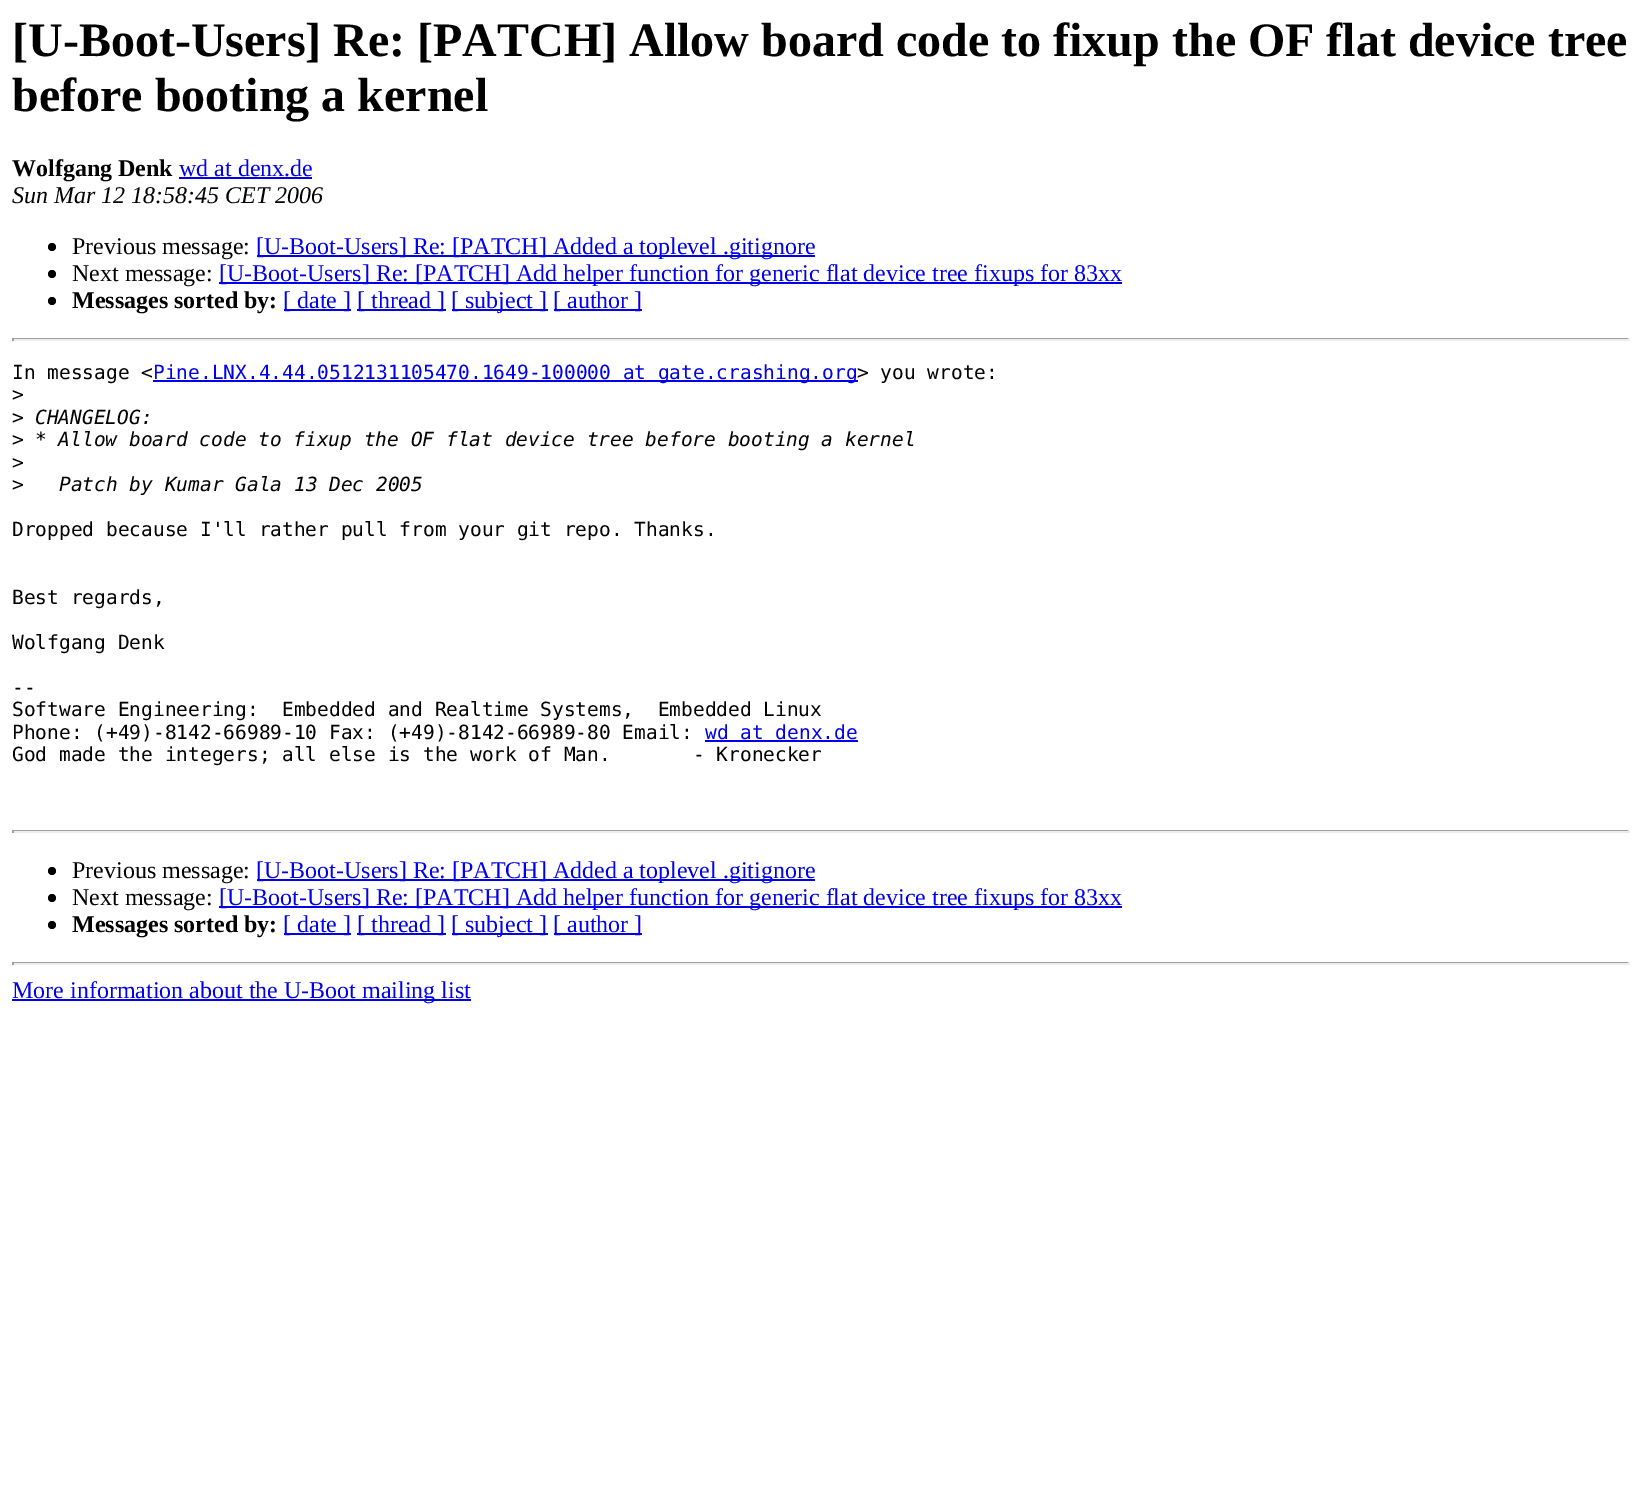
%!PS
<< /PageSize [1640 1497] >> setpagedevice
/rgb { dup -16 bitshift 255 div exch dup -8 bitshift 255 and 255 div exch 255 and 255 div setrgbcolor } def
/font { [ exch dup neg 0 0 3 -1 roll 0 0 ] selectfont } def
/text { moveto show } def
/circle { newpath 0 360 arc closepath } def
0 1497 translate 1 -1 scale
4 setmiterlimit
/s1 { /LiberationSerif-Bold 48 font 16#000000 rgb } def
/s2 { /LiberationSerif-Bold 24 font 16#000000 rgb } def
/s3 { /LiberationSerif-Regular 24 font 16#0000EE rgb } def
/s4 { /LiberationSerif-Italic 24 font 16#000000 rgb } def
/s5 { /LiberationSerif-Regular 24 font 16#000000 rgb } def
/s6 { /DejaVuSansMono-Regular 19.5 font 16#000000 rgb } def
/s7 { /DejaVuSansMono-Regular 19.5 font 16#0000EE rgb } def
/s8 { /DejaVuSansMono-Italic 19.5 font 16#000000 rgb } def
16#FFFFFF rgb
0 0 1640 1497 rectfill
s1
([U-Boot-Users] Re: [PATCH] Allow board code to fixup the OF flat device tree) 12 56 text
(before booting a kernel) 12 111 text
s2
(Wolfgang Denk) 12 176 text
s3
(wd at denx.de) 179 176 text
179 177 133 2 rectfill
s4
(Sun Mar 12 18:58:45 CET 2006) 12 203 text
52 247 4 circle fill
s5
(Previous message:) 72 254 text
16#0000EE rgb
257 255 558 2 rectfill
([U-Boot-Users] Re: [PATCH] Added a toplevel .gitignore) 256 254 text
16#000000 rgb
52 274 4 circle fill
(Next message:) 72 281 text
16#0000EE rgb
219 282 903 2 rectfill
([U-Boot-Users] Re: [PATCH] Add helper function for generic flat device tree fixups for 83xx) 219 281 text
16#000000 rgb
52 301 4 circle fill
s2
(Messages sorted by:) 72 308 text
16#0000EE rgb
284 309 67 2 rectfill
s3
([ date ]) 283 308 text
357 309 89 2 rectfill
([ thread ]) 357 308 text
452 309 96 2 rectfill
([ subject ]) 451 308 text
554 309 88 2 rectfill
([ author ]) 553 308 text
16#9F9F9F rgb
12 338 1617 1 rectfill
16#EEEEEE rgb
1628 338 2 3 rectfill
12 339 1617 2 rectfill
16#9F9F9F rgb
12 338 2 3 rectfill
s6
(In message <) 12 379 text
16#0000EE rgb
153 380 705 2 rectfill
(Pine.LNX.4.44.0512131105470.1649-100000 at gate.crashing.org) 153 379 text
s6
(> you wrote:) 857 379 text
(>) 12 401 text
(>) 12 424 text
s8
(CHANGELOG:) 35 424 text
s6
(>) 12 446 text
s8
(* Allow board code to fixup the OF flat device tree before booting a kernel) 35 446 text
s6
(>) 12 469 text
(>) 12 491 text
s8
(Patch by Kumar Gala 13 Dec 2005) 59 491 text
s6
(Dropped because I'll rather pull from your git repo. Thanks.) 12 536 text
(Best regards,) 12 604 text
(Wolfgang Denk) 12 649 text
(--) 12 694 text
(Software Engineering:  Embedded and Realtime Systems,  Embedded Linux) 12 716 text
(Phone: \(+49\)-8142-66989-10 Fax: \(+49\)-8142-66989-80 Email:) 12 739 text
s7
(wd at denx.de) 705 739 text
705 740 153 2 rectfill
s6
(God made the integers; all else is the work of Man.       - Kronecker) 12 761 text
16#9F9F9F rgb
12 830 1617 1 rectfill
16#EEEEEE rgb
1628 830 2 3 rectfill
12 831 1617 2 rectfill
16#9F9F9F rgb
12 830 2 3 rectfill
16#000000 rgb
52 871 4 circle fill
s5
(Previous message:) 72 878 text
16#0000EE rgb
257 879 558 2 rectfill
([U-Boot-Users] Re: [PATCH] Added a toplevel .gitignore) 256 878 text
16#000000 rgb
52 898 4 circle fill
(Next message:) 72 905 text
16#0000EE rgb
219 906 903 2 rectfill
([U-Boot-Users] Re: [PATCH] Add helper function for generic flat device tree fixups for 83xx) 219 905 text
16#000000 rgb
52 925 4 circle fill
s2
(Messages sorted by:) 72 932 text
16#0000EE rgb
284 933 67 2 rectfill
s3
([ date ]) 283 932 text
357 933 89 2 rectfill
([ thread ]) 357 932 text
452 933 96 2 rectfill
([ subject ]) 451 932 text
554 933 88 2 rectfill
([ author ]) 553 932 text
16#9F9F9F rgb
12 962 1617 1 rectfill
16#EEEEEE rgb
1628 962 2 3 rectfill
12 963 1617 2 rectfill
16#9F9F9F rgb
12 962 2 3 rectfill
16#0000EE rgb
12 999 459 2 rectfill
(More information about the U-Boot mailing list) 12 998 text
showpage
